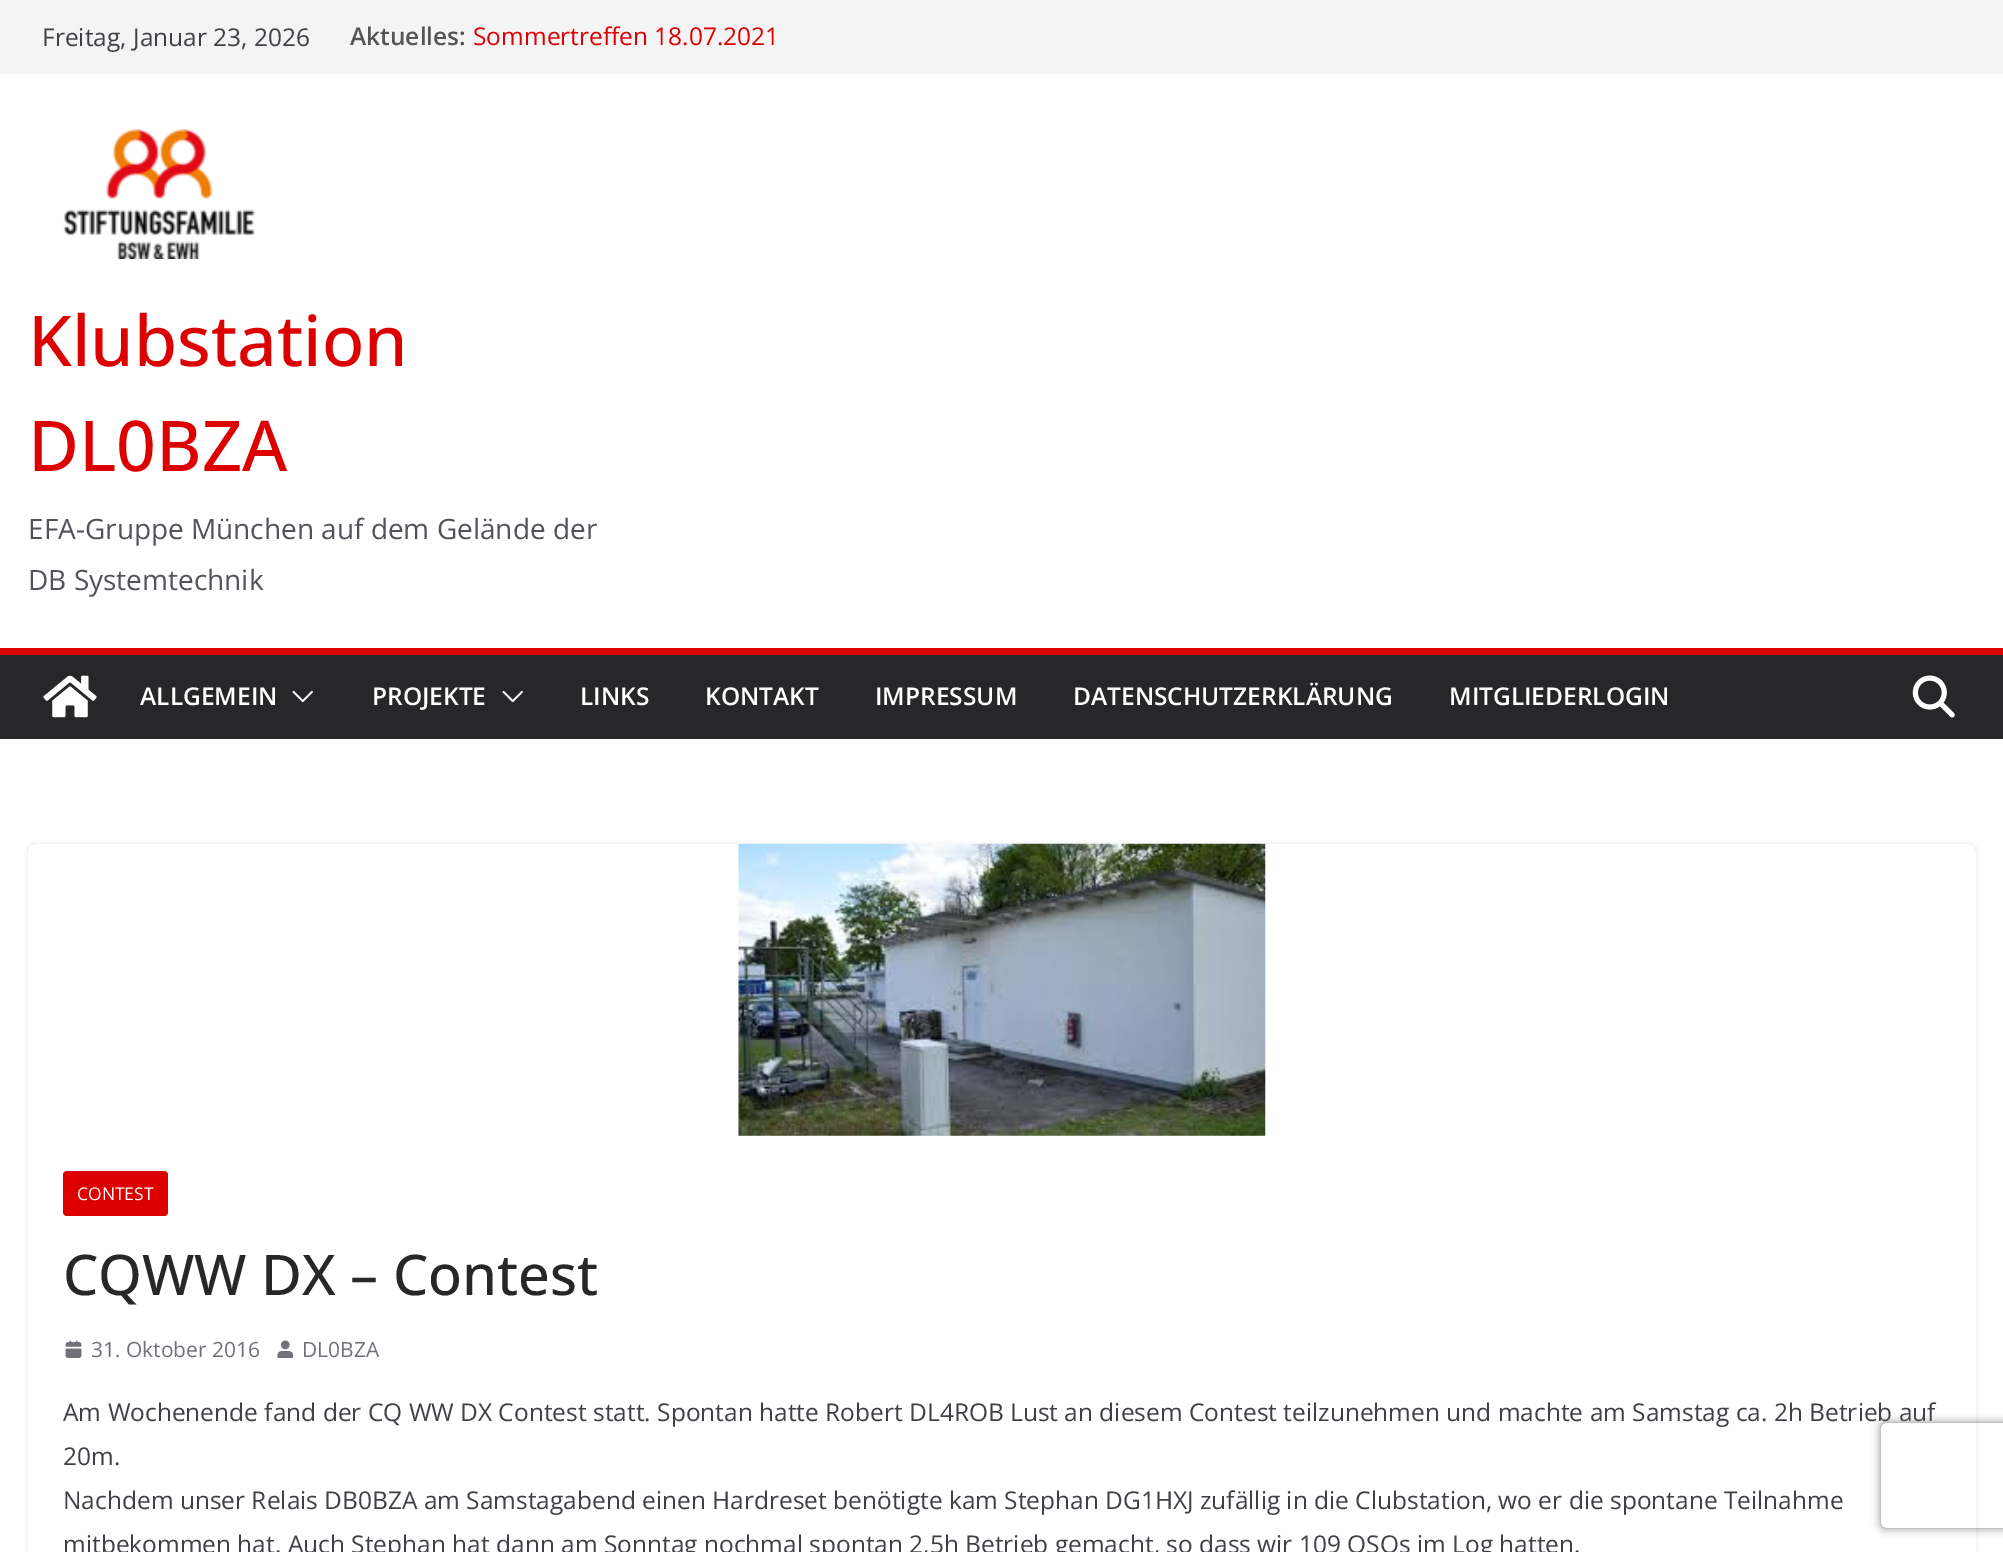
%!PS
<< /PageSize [2003 1552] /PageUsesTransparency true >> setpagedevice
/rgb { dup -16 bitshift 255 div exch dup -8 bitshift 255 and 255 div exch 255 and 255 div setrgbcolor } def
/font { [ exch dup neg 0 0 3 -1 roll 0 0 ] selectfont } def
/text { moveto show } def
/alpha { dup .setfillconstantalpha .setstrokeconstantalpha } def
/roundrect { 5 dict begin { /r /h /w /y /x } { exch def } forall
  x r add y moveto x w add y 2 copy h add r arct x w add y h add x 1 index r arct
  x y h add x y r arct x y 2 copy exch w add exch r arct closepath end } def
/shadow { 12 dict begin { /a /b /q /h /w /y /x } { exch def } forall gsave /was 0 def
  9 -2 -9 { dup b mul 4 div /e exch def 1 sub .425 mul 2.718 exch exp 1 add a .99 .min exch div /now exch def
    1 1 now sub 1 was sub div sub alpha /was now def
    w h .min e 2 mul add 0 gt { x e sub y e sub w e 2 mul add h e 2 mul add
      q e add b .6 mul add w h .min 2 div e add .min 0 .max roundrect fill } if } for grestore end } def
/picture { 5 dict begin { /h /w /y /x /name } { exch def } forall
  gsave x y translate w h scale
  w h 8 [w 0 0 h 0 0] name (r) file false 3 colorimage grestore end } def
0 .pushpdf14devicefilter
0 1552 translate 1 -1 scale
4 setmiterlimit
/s1 { /OpenSans-Regular 24.5 font 16#3F3F46 rgb } def
/s2 { /OpenSans-SemiBold 24.5 font 16#555555 rgb } def
/s3 { /OpenSans-Regular 24.5 font 16#DD0000 rgb } def
/s4 { /OpenSans-Medium 70 font 16#DD0000 rgb } def
/s5 { /OpenSans-Regular 28 font 16#52525B rgb } def
/s6 { /OpenSans-SemiBold 24.5 font 16#FFFFFF rgb } def
/s7 { /OpenSans-Regular 17.5 font 16#FFFFFF rgb } def
/s8 { /OpenSans-Medium 56 font 16#27272A rgb } def
/s9 { /OpenSans-Regular 21 font 16#71717A rgb } def
16#FFFFFF rgb
0 0 2003 1552 rectfill
16#000000 rgb
0 0 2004 72 0 2 0.1 shadow
16#F4F4F5 rgb
0 0 2003 72 rectfill
s1
(Freitag, Januar 23, 2026) 42 46 text
s2
(Aktuelles:) 350 45 text
s3
(Sommertreffen 18.07.2021) 473 45 text
(pic1.raw) 63 129 192 130 picture
s4
(Klubstation) 28 366 text
(DL0BZA) 28 471 text
s5
(EFA-Gruppe München auf dem Gelände der) 28 539 text
(DB Systemtechnik) 28 590 text
16#27272A rgb
0 655 2003 84 rectfill
16#DD0000 rgb
0 648 2003 7 rectfill
(pic2.raw) 43 675 54 43 picture
s6
(ALLGEMEIN) 140 705 text
(pic3.raw) 292 690 21 13 picture
(PROJEKTE) 372 705 text
(pic3.raw) 502 690 21 13 picture
(LINKS) 580 705 text
(KONTAKT) 705 705 text
(IMPRESSUM) 875 705 text
(DATENSCHUTZERKLÄRUNG) 1073 705 text
(MITGLIEDERLOGIN) 1449 705 text
(pic4.raw) 1912 675 43 43 picture
gsave
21 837 moveto 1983 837 lineto 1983 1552 lineto 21 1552 lineto closepath 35 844 moveto 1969 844 lineto 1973 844 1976 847 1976 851 curveto 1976 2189 lineto 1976 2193 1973 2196 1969 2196 curveto 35 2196 lineto 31 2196 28 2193 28 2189 curveto 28 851 lineto 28 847 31 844 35 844 curveto closepath eoclip newpath
16#E4E4E7 rgb
28 844 1948 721 7 2 1 shadow
grestore
(pic5.raw) 738 843 528 293 picture
16#DD0000 rgb
63 1171 105 45 4 roundrect fill
s7
(CONTEST) 77 1200 text
s8
(CQWW DX – Contest) 63 1295 text
(pic6.raw) 65 1340 17 18 picture
s9
(31. Oktober 2016) 91 1357 text
(pic7.raw) 277 1340 17 18 picture
(DL0BZA) 302 1357 text
s1
(Am Wochenende fand der CQ WW DX Contest statt. Spontan hatte Robert DL4ROB Lust an diesem Contest teilzunehmen und machte am Samstag ca. 2h Betrieb auf) 63 1421 text
(20m.) 63 1465 text
(Nachdem unser Relais DB0BZA am Samstagabend einen Hardreset benötigte kam Stephan DG1HXJ zufällig in die Clubstation, wo er die spontane Teilnahme) 63 1509 text
(mitbekommen hat. Auch Stephan hat dann am Sonntag nochmal spontan 2,5h Betrieb gemacht, so dass wir 109 QSOs im Log hatten.) 63 1553 text
gsave
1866 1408 moveto 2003 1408 lineto 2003 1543 lineto 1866 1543 lineto closepath 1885 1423 moveto 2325 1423 lineto 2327 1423 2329 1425 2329 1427 curveto 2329 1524 lineto 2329 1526 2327 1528 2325 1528 curveto 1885 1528 lineto 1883 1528 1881 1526 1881 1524 curveto 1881 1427 lineto 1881 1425 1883 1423 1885 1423 curveto closepath eoclip newpath
16#808080 rgb
1881 1423 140 105 4 4.5 1 shadow
grestore
.poppdf14devicefilter showpage
